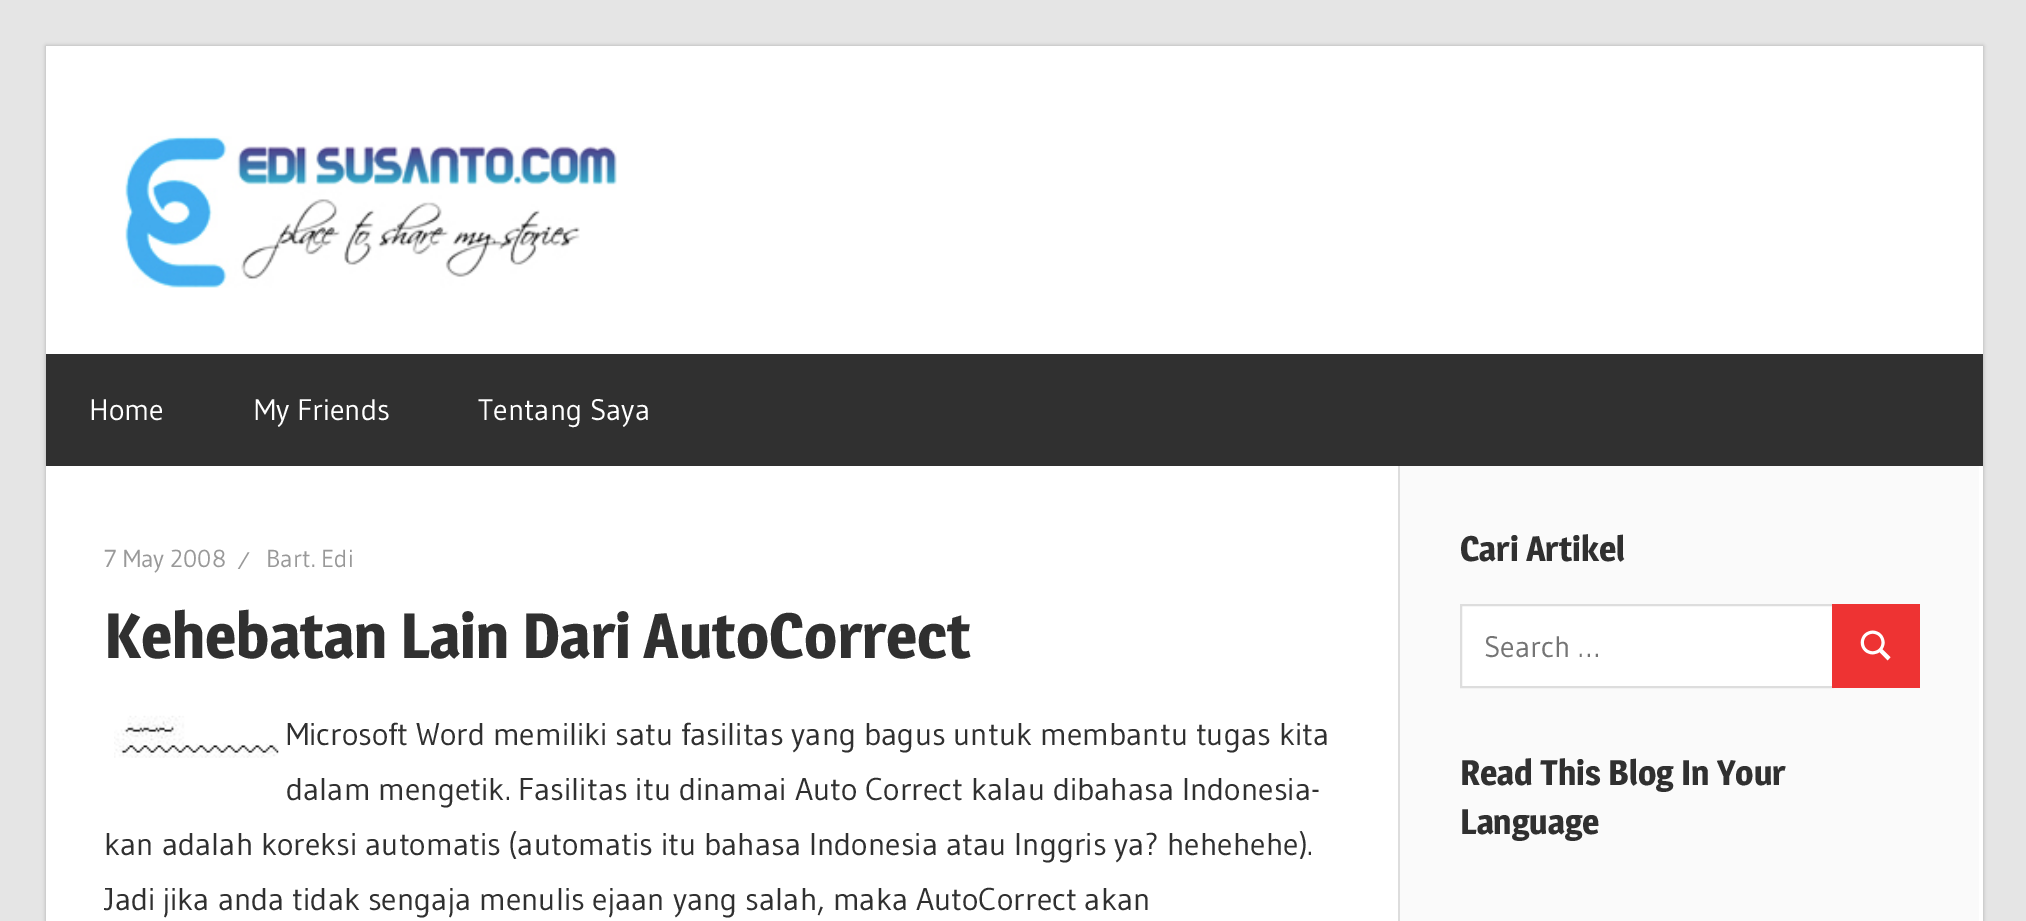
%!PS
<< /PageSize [2026 921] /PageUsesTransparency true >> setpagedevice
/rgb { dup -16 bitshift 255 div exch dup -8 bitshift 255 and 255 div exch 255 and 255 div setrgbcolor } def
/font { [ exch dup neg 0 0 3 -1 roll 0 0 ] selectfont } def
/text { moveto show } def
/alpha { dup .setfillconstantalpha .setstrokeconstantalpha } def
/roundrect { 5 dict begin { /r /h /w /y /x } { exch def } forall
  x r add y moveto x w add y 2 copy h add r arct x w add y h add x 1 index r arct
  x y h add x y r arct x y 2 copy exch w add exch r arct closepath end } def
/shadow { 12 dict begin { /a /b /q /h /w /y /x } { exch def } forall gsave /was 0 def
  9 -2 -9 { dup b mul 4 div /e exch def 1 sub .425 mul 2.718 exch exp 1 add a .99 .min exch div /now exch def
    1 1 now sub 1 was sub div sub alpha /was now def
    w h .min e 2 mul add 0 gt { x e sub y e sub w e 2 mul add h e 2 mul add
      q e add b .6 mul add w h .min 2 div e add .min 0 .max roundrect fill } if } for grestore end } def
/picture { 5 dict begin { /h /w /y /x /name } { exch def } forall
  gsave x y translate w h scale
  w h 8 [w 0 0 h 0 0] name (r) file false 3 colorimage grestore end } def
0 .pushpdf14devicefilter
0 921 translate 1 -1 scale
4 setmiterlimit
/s1 { /Gudea-Regular 29.75 font 16#FFFFFF rgb } def
/s2 { /Gudea-Regular 24.5 font 16#999999 rgb } def
/s3 { /Magra-Bold 63 font 16#303030 rgb } def
/s4 { /Gudea-Regular 31.5 font 16#303030 rgb } def
/s5 { /Magra-Bold 35 font 16#303030 rgb } def
/s6 { /Gudea-Regular 29.75 font 16#757575 rgb } def
16#E5E5E5 rgb
0 0 2026 921 rectfill
16#AAAAAA rgb
46 46 1937 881 0 2 1 shadow
16#FFFFFF rgb
46 46 1937 875 rectfill
(pic1.raw) 125 136 492 152 picture
16#303030 rgb
46 354 1937 112 rectfill
s1
(Home) 89 420 text
(My Friends) 254 420 text
(Tentang Saya) 478 420 text
s2
(7 May 2008) 104 567 text
(⁄) 238 569 text
(Bart. Edi) 266 567 text
s3
(Kehebatan Lain Dari AutoCorrect) 104 658 text
(pic2.raw) 114 715 165 43 picture
s4
(Microsoft Word memiliki satu fasilitas yang bagus untuk membantu tugas kita) 286 745 text
(dalam mengetik. Fasilitas itu dinamai Auto Correct kalau dibahasa Indonesia-) 286 800 text
(kan adalah koreksi automatis \(automatis itu bahasa Indonesia atau Inggris ya? hehehehe\).) 104 855 text
(Jadi jika anda tidak sengaja menulis ejaan yang salah, maka AutoCorrect akan) 104 910 text
16#FAFAFA rgb
1400 466 579 455 rectfill
16#DDDDDD rgb
1398 466 2 455 rectfill
s5
(Cari Artikel) 1460 561 text
16#FFFFFF rgb
1461 605 moveto 1833 605 lineto 1833 687 lineto 1461 687 lineto closepath gsave fill grestore
16#DDDDDD rgb
2 setlinewidth
stroke
s6
(Search …) 1484 657 text
16#EE3333 rgb
1832 604 88 84 rectfill
(pic3.raw) 1860 630 31 31 picture
s5
(Read This Blog In Your) 1460 785 text
(Language) 1460 834 text
.poppdf14devicefilter showpage
